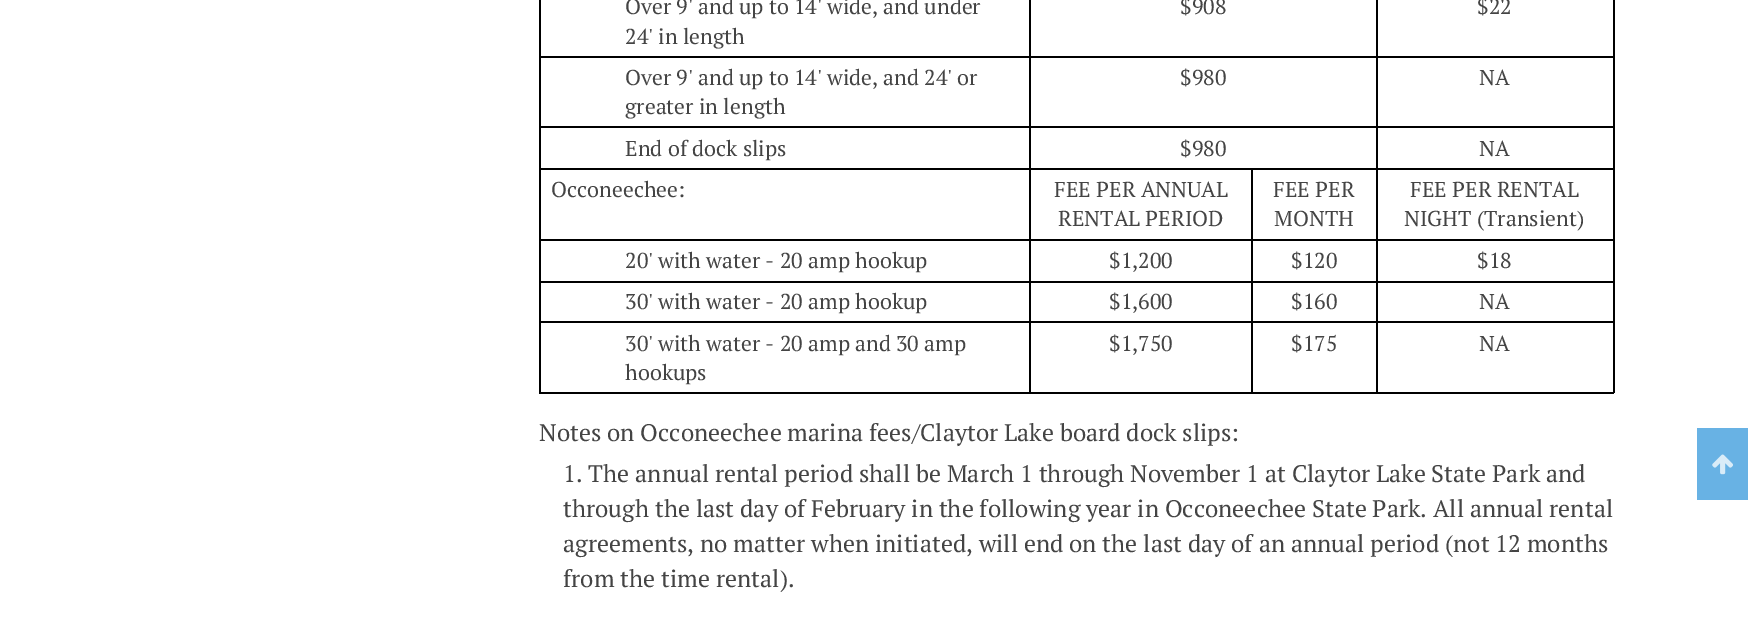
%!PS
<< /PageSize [1748 634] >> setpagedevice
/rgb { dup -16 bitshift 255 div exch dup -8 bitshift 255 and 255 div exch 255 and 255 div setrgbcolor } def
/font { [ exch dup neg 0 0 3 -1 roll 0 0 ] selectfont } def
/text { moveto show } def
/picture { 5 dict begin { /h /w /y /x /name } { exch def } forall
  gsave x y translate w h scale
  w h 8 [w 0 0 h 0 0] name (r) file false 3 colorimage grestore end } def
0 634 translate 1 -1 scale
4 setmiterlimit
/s1 { /PTSerif-Regular 21.6 font 16#444444 rgb } def
/s2 { /PTSerif-Regular 24 font 16#444444 rgb } def
16#FFFFFF rgb
0 0 1748 634 rectfill
16#000000 rgb
1613 0 2 393 rectfill
1376 392 238 2 rectfill
1376 321 2 72 rectfill
1376 321 238 2 rectfill
1376 281 2 42 rectfill
1376 281 238 2 rectfill
1376 239 2 43 rectfill
1376 239 238 2 rectfill
1376 168 2 72 rectfill
1376 168 238 2 rectfill
1376 126 2 44 rectfill
1376 126 238 2 rectfill
1376 56 2 72 rectfill
1376 56 238 2 rectfill
1376 0 2 57 rectfill
1251 392 126 2 rectfill
1251 321 2 72 rectfill
1251 321 126 2 rectfill
1251 281 2 42 rectfill
1251 281 126 2 rectfill
1251 239 2 43 rectfill
1251 239 126 2 rectfill
1251 168 2 72 rectfill
1029 392 224 2 rectfill
1029 321 2 72 rectfill
1029 321 224 2 rectfill
1029 281 2 42 rectfill
1029 281 224 2 rectfill
1029 239 2 43 rectfill
1029 239 224 2 rectfill
1029 168 2 72 rectfill
1029 168 348 2 rectfill
1029 126 2 44 rectfill
1029 126 348 2 rectfill
1029 56 2 72 rectfill
1029 56 348 2 rectfill
1029 0 2 57 rectfill
539 392 492 2 rectfill
539 321 2 72 rectfill
539 321 492 2 rectfill
539 281 2 42 rectfill
539 281 492 2 rectfill
539 239 2 43 rectfill
539 239 492 2 rectfill
539 168 2 72 rectfill
539 168 492 2 rectfill
539 126 2 44 rectfill
539 126 492 2 rectfill
539 56 2 72 rectfill
539 56 492 2 rectfill
539 0 2 57 rectfill
s1
(Over 9' and up to 14' wide, and under) 625 14 text
(24' in length) 625 44 text
($908) 1180 14 text
($22) 1477 14 text
(Over 9' and up to 14' wide, and 24' or) 625 85 text
(greater in length) 625 114 text
($980) 1180 85 text
(NA) 1479 85 text
(End of dock slips) 625 156 text
($980) 1180 156 text
(NA) 1479 156 text
(Occoneechee:) 551 197 text
(FEE PER ANNUAL) 1054 197 text
(RENTAL PERIOD) 1058 226 text
(FEE PER) 1273 197 text
(MONTH) 1274 226 text
(FEE PER RENTAL) 1410 197 text
(NIGHT \(Transient\)) 1404 226 text
(20' with water - 20 amp hookup) 625 268 text
($1,200) 1109 268 text
($120) 1291 268 text
($18) 1477 268 text
(30' with water - 20 amp hookup) 625 309 text
($1,600) 1109 309 text
($160) 1291 309 text
(NA) 1479 309 text
(30' with water - 20 amp and 30 amp) 625 351 text
(hookups) 625 380 text
($1,750) 1109 351 text
($175) 1291 351 text
(NA) 1479 351 text
s2
(Notes on Occoneechee marina fees/Claytor Lake board dock slips:) 539 441 text
(1. The annual rental period shall be March 1 through November 1 at Claytor Lake State Park and) 563 482 text
(through the last day of February in the following year in Occoneechee State Park. All annual rental) 563 517 text
(agreements, no matter when initiated, will end on the last day of an annual period \(not 12 months) 563 552 text
(from the time rental\).) 563 587 text
16#68B2E4 rgb
1697 428 51 72 rectfill
(pic1.raw) 1712 454 21 21 picture
showpage
